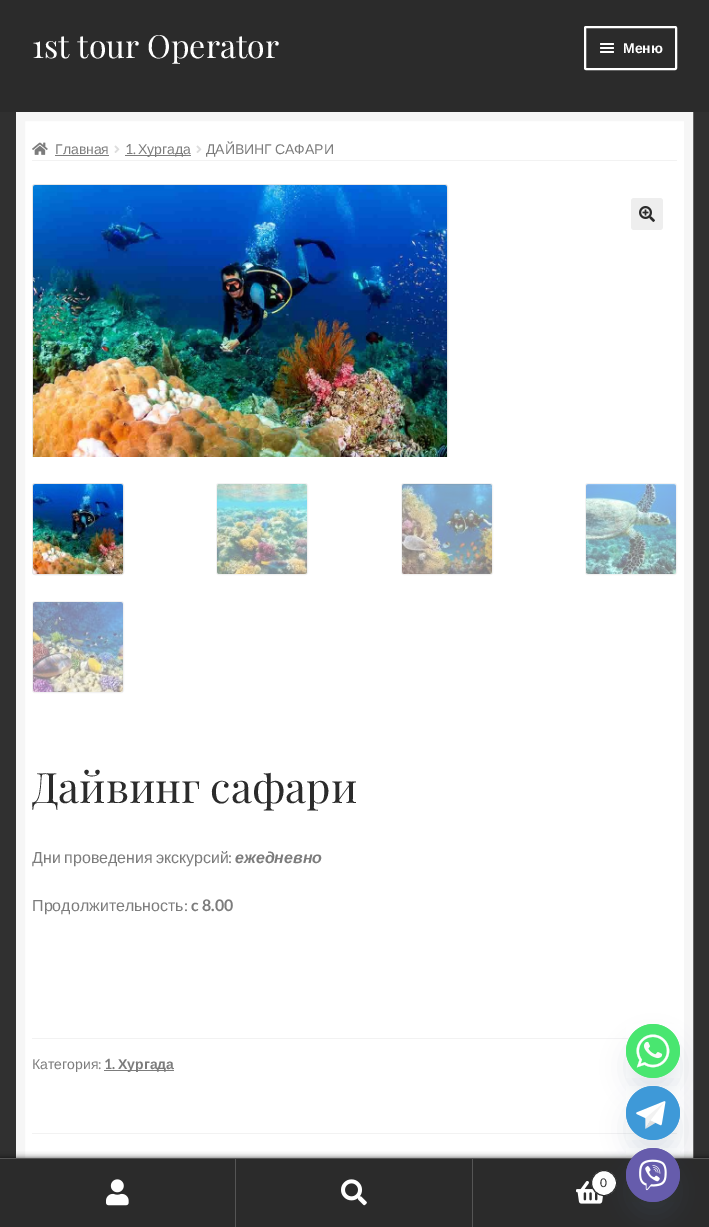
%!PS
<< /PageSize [709 1227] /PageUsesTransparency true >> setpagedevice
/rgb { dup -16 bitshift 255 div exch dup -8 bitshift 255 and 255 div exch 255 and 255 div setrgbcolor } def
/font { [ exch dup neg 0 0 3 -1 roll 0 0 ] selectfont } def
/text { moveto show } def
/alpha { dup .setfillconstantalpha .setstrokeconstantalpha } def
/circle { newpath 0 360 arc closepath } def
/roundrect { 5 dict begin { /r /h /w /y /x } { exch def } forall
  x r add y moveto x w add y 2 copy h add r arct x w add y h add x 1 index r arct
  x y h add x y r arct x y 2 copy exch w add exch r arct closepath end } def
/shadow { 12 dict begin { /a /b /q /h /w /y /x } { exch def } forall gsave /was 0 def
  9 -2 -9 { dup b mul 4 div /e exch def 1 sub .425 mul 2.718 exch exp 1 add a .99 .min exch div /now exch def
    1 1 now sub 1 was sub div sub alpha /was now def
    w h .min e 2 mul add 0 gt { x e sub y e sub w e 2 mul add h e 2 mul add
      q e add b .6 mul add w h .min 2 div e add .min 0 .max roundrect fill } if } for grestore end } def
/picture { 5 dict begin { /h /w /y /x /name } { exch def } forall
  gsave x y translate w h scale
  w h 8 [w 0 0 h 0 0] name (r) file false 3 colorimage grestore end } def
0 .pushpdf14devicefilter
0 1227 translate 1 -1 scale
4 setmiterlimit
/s1 { /PlayfairDisplay-Regular 32 font 16#FFFFFF rgb } def
/s2 { /LiberationSans-Bold 14 font 16#FFFFFF rgb } def
/s3 { /LiberationSans-Regular 14 font 16#7C7C7C rgb } def
/s4 { /Lato-Regular 14 font 16#7C7C7C rgb } def
/s5 { /PlayfairDisplay-Regular 42 font 16#2B2B2B rgb } def
/s6 { /Lato-Regular 16 font 16#7C7C7C rgb } def
/s7 { /LiberationSans-BoldItalic 16 font 16#7C7C7C rgb } def
/s8 { /LiberationSans-Regular 16 font 16#7C7C7C rgb } def
/s9 { /Lato-Bold 16 font 16#7C7C7C rgb } def
/s10 { /Lato-Bold 14 font 16#7C7C7C rgb } def
/s11 { /LiberationSans-Bold 14 font 16#7C7C7C rgb } def
/s12 { /Lato-Regular 12 font 16#2B2B2B rgb } def
16#303030 rgb
0 0 709 1227 rectfill
16#2B2B2B rgb
0 0 709 112 rectfill
s1
(1st tour Operator) 32 58 text
2 setlinewidth
585 27 91 42 1 roundrect stroke
600 43 14 2 1 roundrect fill
600 47 14 2 1 roundrect fill
s2
(Меню) 623 53 text
600 51 14 2 1 roundrect fill
25 121 659 1037 rectfill
16#F6F6F6 rgb
9 setlinewidth
20.5 116.5 668 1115 rectstroke
16#F2F2F2 rgb
32 160 645 1 rectfill
(pic1.raw) 32 142 16 13 picture
s3
(Главная) 55 154 text
55 155 54 1 rectfill
(pic2.raw) 114 145 6 8 picture
s4
(1.) 125 154 text
125 155 66 1 rectfill
s3
(Хургада) 138 154 text
(pic2.raw) 196 145 6 8 picture
206 154 moveto -1 0 32 (ДАЙВИНГ САФАРИ) widthshow
gsave
32 184 645 273 rectclip
16#E6E6E6 rgb
1 setlinewidth
32.5 184.5 415 277 2.5 roundrect stroke
grestore
(pic3.raw) 33 185 414 272 picture
16#EEEEEE rgb
631 198 32 32 3 roundrect fill
(pic4.raw) 639 206 16 16 picture
16#E6E6E6 rgb
1 setlinewidth
32.5 483.5 91 91 2.5 roundrect stroke
(pic5.raw) 33 484 90 90 picture
16#F2F2F2 rgb
216.5 483.5 91 91 2.5 roundrect stroke
(pic6.raw) 217 484 90 90 picture
401.5 483.5 91 91 2.5 roundrect stroke
(pic7.raw) 402 484 90 90 picture
585.5 483.5 91 91 2.5 roundrect stroke
(pic8.raw) 586 484 90 90 picture
32.5 601.5 91 91 2.5 roundrect stroke
(pic9.raw) 33 602 90 90 picture
s5
(Дайвинг сафари) 32 803 text
/LiberationSans-Regular 16 font
16#7C7C7C rgb
32 863 moveto -1 0 32 (Дни проведения экскурсий) widthshow
s6
(:) 228 863 text
s7
(ежедневно) 235 863 text
s8
(Продолжительность) 32 911 text
s6
(:) 184 911 text
s9
(c 8.00) 191 911 text
16#F2F2F2 rgb
32 1038 645 1 rectfill
s3
(Категория) 32 1069 text
s4
(:) 98 1069 text
s10
(1.) 104 1069 text
104 1070 70 1 rectfill
s11
(Хургада) 118 1069 text
16#F2F2F2 rgb
32 1133 645 1 rectfill
16#000000 rgb
0 1158 709 69 0 3 0.7 shadow
16#555555 rgb
0 1158 709 1 rectfill
16#2B2B2B rgb
0 1159 235 68 rectfill
16#555555 rgb
235 1159 1 68 rectfill
(pic10.raw) 106 1179 23 27 picture
16#2B2B2B rgb
236 1159 236 68 rectfill
16#555555 rgb
472 1159 1 68 rectfill
(pic11.raw) 341 1179 26 27 picture
16#2B2B2B rgb
473 1159 236 68 rectfill
(pic12.raw) 576 1181 28 23 picture
16#FFFFFF rgb
604 1183 12.5 circle gsave fill grestore
16#2B2B2B rgb
stroke
s12
(0) 600 1187 text
16#49687E rgb
626 1040 54 54 27 12 0.16 shadow
(pic13.raw) 626 1024 54 54 picture
626 1102 54 54 27 12 0.16 shadow
(pic14.raw) 626 1086 54 54 picture
626 1164 54 54 27 12 0.16 shadow
(pic15.raw) 626 1148 54 54 picture
.poppdf14devicefilter showpage
